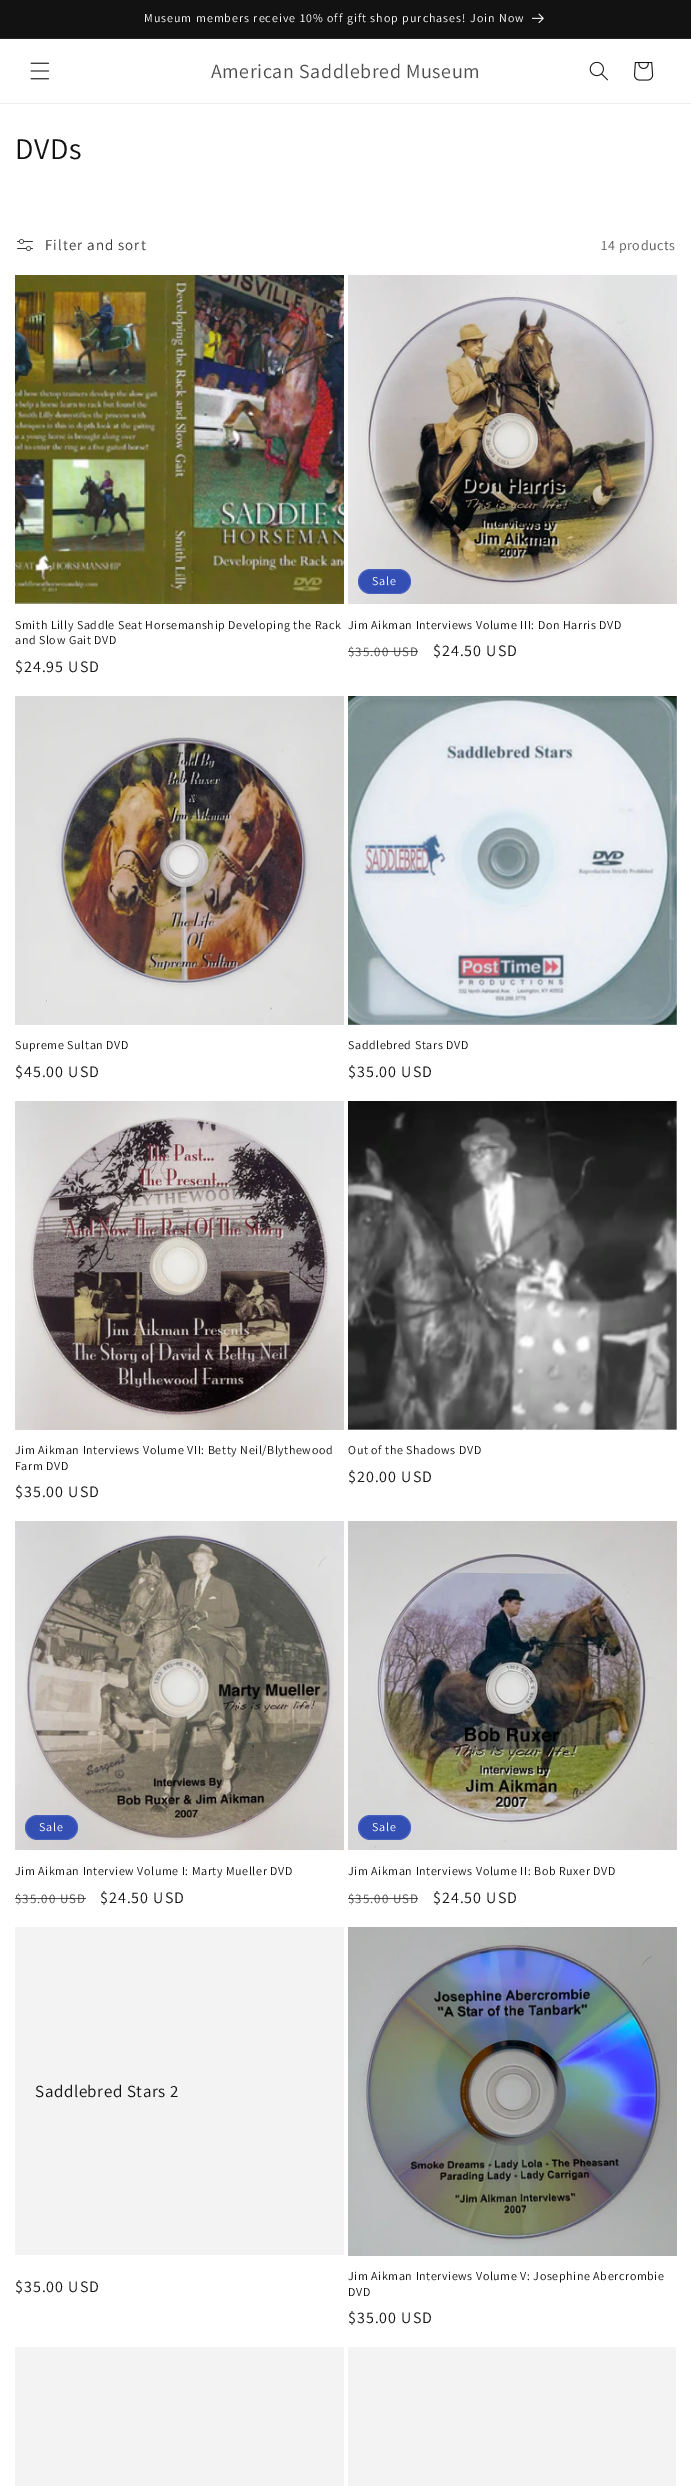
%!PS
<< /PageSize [691 2486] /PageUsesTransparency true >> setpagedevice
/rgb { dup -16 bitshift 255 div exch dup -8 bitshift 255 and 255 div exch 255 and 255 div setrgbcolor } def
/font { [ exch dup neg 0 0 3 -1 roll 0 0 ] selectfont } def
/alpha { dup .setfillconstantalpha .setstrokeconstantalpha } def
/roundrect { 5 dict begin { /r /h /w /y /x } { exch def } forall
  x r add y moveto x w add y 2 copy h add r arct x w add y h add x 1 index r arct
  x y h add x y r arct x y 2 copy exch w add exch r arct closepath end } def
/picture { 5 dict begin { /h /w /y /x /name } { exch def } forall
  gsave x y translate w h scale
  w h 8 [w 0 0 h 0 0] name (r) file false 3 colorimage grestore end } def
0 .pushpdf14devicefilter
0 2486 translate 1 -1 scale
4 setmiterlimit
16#FFFFFF rgb
0 0 691 2486 rectfill
16#121212 rgb
0 0 691 38 rectfill
16#252525 rgb
0 38 691 1 rectfill
/Assistant-Regular 12 font
16#FFFFFF rgb
144 22 moveto 1 0 (Museum members receive 10% off gift shop purchases! Join Now) ashow
(pic1.raw) 532 13 12 10 picture
16#ECECEC rgb
0 103 691 1 rectfill
(pic2.raw) 30 62 20 18 picture
/Assistant-Regular 20 font
16#4D4D4D rgb
211 78 moveto 0.6 0 (American Saddlebred Museum) ashow
(pic3.raw) 589 61 19 20 picture
(pic4.raw) 634 62 20 19 picture
/Assistant-Regular 30 font
16#121212 rgb
15 159 moveto 0.6 0 (DVDs) ashow
(pic5.raw) 17 239 16 12 picture
/Assistant-Regular 15 font
16#363636 rgb
45 250 moveto 1 0 (Filter and sort) ashow
/Assistant-Regular 14 font
16#595959 rgb
601 250 moveto 0.6 0 (14 products) ashow
(pic6.raw) 15 275 329 329 picture
/Assistant-Regular 12 font
16#121212 rgb
15 629 moveto 0.6 0 (Smith Lilly Saddle Seat Horsemanship Developing the Rack) ashow
15 644 moveto 0.6 0 (and Slow Gait DVD) ashow
/Assistant-Regular 16 font
15 672 moveto 1 0 ($24.95 USD) ashow
(pic7.raw) 348 275 329 329 picture
16#334FB4 rgb
358 569 53 25 12.5 roundrect fill
0.1 alpha
16#FFFFFF rgb
358.5 569.5 52 24 12 roundrect stroke
/Assistant-Regular 12 font
1 alpha
372 585 moveto 1 0 (Sale) ashow
16#121212 rgb
348 629 moveto 0.6 0 (Jim Aikman Interviews Volume III: Don Harris DVD) ashow
/Assistant-Regular 13 font
16#4D4D4D rgb
348 656 moveto 1 0 ($35.00 USD) ashow
0.75 alpha
16#121212 rgb
348 651 70 1 rectfill
/Assistant-Regular 16 font
1 alpha
433 656 moveto 1 0 ($24.50 USD) ashow
(pic8.raw) 15 696 329 329 picture
/Assistant-Regular 12 font
15 1049 moveto 0.6 0 (Supreme Sultan DVD) ashow
/Assistant-Regular 16 font
15 1077 moveto 1 0 ($45.00 USD) ashow
(pic9.raw) 348 696 329 329 picture
/Assistant-Regular 12 font
348 1049 moveto 0.6 0 (Saddlebred Stars DVD) ashow
/Assistant-Regular 16 font
348 1077 moveto 1 0 ($35.00 USD) ashow
(pic10.raw) 15 1101 329 329 picture
/Assistant-Regular 12 font
15 1454 moveto 0.6 0 (Jim Aikman Interviews Volume VII: Betty Neil/Blythewood) ashow
15 1470 moveto 0.6 0 (Farm DVD) ashow
/Assistant-Regular 16 font
15 1497 moveto 1 0 ($35.00 USD) ashow
(pic11.raw) 348 1101 329 329 picture
/Assistant-Regular 12 font
348 1454 moveto 0.6 0 (Out of the Shadows DVD) ashow
/Assistant-Regular 16 font
348 1482 moveto 1 0 ($20.00 USD) ashow
(pic12.raw) 15 1521 329 329 picture
16#334FB4 rgb
25 1815 53 25 12.5 roundrect fill
0.1 alpha
16#FFFFFF rgb
25.5 1815.5 52 24 12 roundrect stroke
/Assistant-Regular 12 font
1 alpha
39 1831 moveto 1 0 (Sale) ashow
16#121212 rgb
15 1875 moveto 0.6 0 (Jim Aikman Interview Volume I: Marty Mueller DVD) ashow
/Assistant-Regular 13 font
16#4D4D4D rgb
15 1903 moveto 1 0 ($35.00 USD) ashow
0.75 alpha
16#121212 rgb
15 1898 71 1 rectfill
/Assistant-Regular 16 font
1 alpha
100 1903 moveto 1 0 ($24.50 USD) ashow
(pic13.raw) 348 1521 329 329 picture
16#334FB4 rgb
358 1815 53 25 12.5 roundrect fill
0.1 alpha
16#FFFFFF rgb
358.5 1815.5 52 24 12 roundrect stroke
/Assistant-Regular 12 font
1 alpha
372 1831 moveto 1 0 (Sale) ashow
16#121212 rgb
348 1875 moveto 0.6 0 (Jim Aikman Interviews Volume II: Bob Ruxer DVD) ashow
/Assistant-Regular 13 font
16#4D4D4D rgb
348 1903 moveto 1 0 ($35.00 USD) ashow
0.75 alpha
16#121212 rgb
348 1898 70 1 rectfill
/Assistant-Regular 16 font
1 alpha
433 1903 moveto 1 0 ($24.50 USD) ashow
16#F3F3F3 rgb
15 1927 329 328 rectfill
/Assistant-Regular 17 font
16#121212 rgb
35 2097 moveto 0.6 0 (Saddlebred Stars 2) ashow
/Assistant-Regular 16 font
15 2292 moveto 1 0 ($35.00 USD) ashow
(pic14.raw) 348 1927 329 329 picture
/Assistant-Regular 12 font
348 2280 moveto 0.6 0 (Jim Aikman Interviews Volume V: Josephine Abercrombie) ashow
348 2296 moveto 0.6 0 (DVD) ashow
/Assistant-Regular 16 font
348 2323 moveto 1 0 ($35.00 USD) ashow
16#F3F3F3 rgb
15 2347 329 139 rectfill
348 2347 328 139 rectfill
.poppdf14devicefilter showpage
